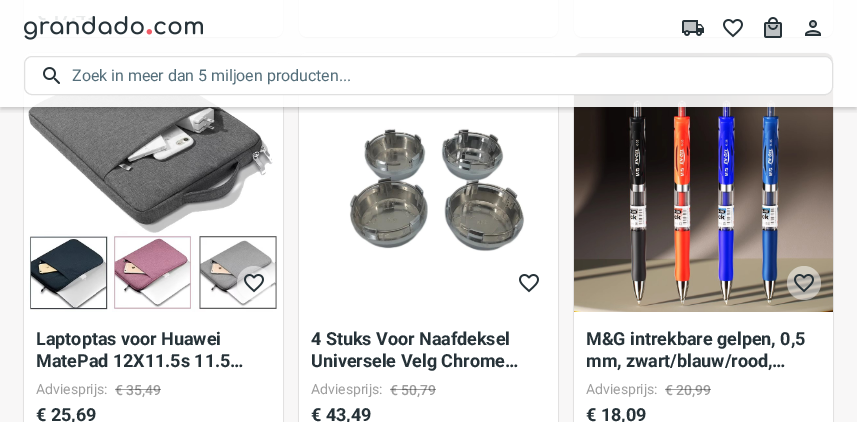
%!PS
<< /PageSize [857 422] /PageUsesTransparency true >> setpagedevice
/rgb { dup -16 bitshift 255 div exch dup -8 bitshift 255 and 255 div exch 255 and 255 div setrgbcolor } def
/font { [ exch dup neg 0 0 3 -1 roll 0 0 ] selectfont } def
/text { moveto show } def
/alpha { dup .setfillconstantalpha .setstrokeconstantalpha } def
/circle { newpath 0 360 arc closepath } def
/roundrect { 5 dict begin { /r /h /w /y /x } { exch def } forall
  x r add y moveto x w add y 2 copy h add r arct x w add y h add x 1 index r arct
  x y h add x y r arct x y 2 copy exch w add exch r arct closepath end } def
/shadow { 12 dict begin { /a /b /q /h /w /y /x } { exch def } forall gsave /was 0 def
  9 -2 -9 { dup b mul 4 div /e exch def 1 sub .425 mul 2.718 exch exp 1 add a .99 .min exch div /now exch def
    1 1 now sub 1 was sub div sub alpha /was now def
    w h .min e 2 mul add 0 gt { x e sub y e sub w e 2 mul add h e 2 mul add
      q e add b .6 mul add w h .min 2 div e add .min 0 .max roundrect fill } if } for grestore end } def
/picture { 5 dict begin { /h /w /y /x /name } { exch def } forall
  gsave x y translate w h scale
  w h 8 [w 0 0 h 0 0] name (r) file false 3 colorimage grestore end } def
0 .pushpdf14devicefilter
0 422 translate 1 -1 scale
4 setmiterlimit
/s1 { /Roboto-Regular 14 font 16#9E9E9E rgb } def
16#F8F7F7 rgb
0 0 857 422 rectfill
16#000000 rgb
24 -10 259 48 8 0.5 0.09 shadow
25 -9 257 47 7 0.5 0.12 shadow
24 -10 259 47 8 0.5 0.31 shadow
16#FFFFFF rgb
24 -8 259 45 8 roundrect fill
16#000000 rgb
299 -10 259 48 8 0.5 0.09 shadow
300 -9 257 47 7 0.5 0.12 shadow
299 -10 259 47 8 0.5 0.31 shadow
16#FFFFFF rgb
299 -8 259 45 8 roundrect fill
16#000000 rgb
574 -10 259 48 8 0.5 0.09 shadow
575 -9 257 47 7 0.5 0.12 shadow
574 -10 259 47 8 0.5 0.31 shadow
16#FFFFFF rgb
574 -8 259 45 8 roundrect fill
16#000000 rgb
24 53 259 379 8 0.5 0.31 shadow
16#FFFFFF rgb
24 53 259 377 8 roundrect fill
(pic7.raw) 24 53 259 259 picture
16#000000 rgb
299 53 259 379 8 0.5 0.31 shadow
16#FFFFFF rgb
299 53 259 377 8 roundrect fill
(pic9.raw) 299 53 259 199 picture
16#000000 rgb
574 53 259 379 8 0.5 0.31 shadow
16#FFFFFF rgb
574 53 259 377 8 roundrect fill
(pic11.raw) 574 53 259 259 picture
gsave
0 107 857 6 rectclip
16#000000 rgb
0 4 857 107 0 2.5 0.09 shadow
grestore
gsave
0 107 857 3 rectclip
16#000000 rgb
1 3 855 105 0 2 0.12 shadow
grestore
0.9 alpha
0 0 857 107 rectfill
1 alpha
(pic1.raw) 24 16 179 24 picture
(pic2.raw) 682 20 22 16 picture
(pic3.raw) 723 19 20 19 picture
(pic4.raw) 764 17 18 21 picture
(pic5.raw) 805 20 16 16 picture
24 56 809 39 8 roundrect fill
0.12 alpha
16#000000 rgb
24.5 56.5 808 38 7.5 roundrect stroke
1 alpha
(pic6.raw) 43 67 17 17 picture
/Roboto-Regular 16 font
16#546E7A rgb
72 81 moveto -0.05 0 (Zoek in meer dan 5 miljoen producten...) ashow
0.5 alpha
16#FFFFFF rgb
254 283 17 circle fill
1 alpha
(pic8.raw) 244 274 20 19 picture
/Roboto-Bold 18 font
16#263238 rgb
36 345 moveto -0.05 0 (Laptoptas voor Huawei) ashow
36 367 moveto -0.05 0 (MatePad 12X11.5s 11.5…) ashow
s1
(Adviesprijs:) 36 394 text
/Roboto-Medium 14 font
115 395 moveto -0.05 0 (€ 35,49) ashow
0.38 alpha
16#000000 rgb
115 389 46 1 rectfill
/Roboto-Bold 18 font
1 alpha
16#263238 rgb
36 421 moveto -0.05 0 (€ 25,69) ashow
(pic10.raw) 519 274 20 19 picture
311 345 moveto -0.05 0 (4 Stuks Voor Naafdeksel) ashow
311 367 moveto -0.05 0 (Universele Velg Chrome…) ashow
s1
(Adviesprijs:) 311 394 text
/Roboto-Medium 14 font
390 395 moveto -0.05 0 (€ 50,79) ashow
0.38 alpha
16#000000 rgb
390 389 46 1 rectfill
/Roboto-Bold 18 font
1 alpha
16#263238 rgb
311 421 moveto -0.05 0 (€ 43,49) ashow
0.5 alpha
16#FFFFFF rgb
804 283 17 circle fill
1 alpha
(pic12.raw) 794 274 20 19 picture
16#263238 rgb
586 345 moveto -0.05 0 (M&G intrekbare gelpen, 0,5) ashow
586 367 moveto -0.05 0 (mm, zwart/blauw/rood,…) ashow
s1
(Adviesprijs:) 586 394 text
/Roboto-Medium 14 font
665 395 moveto -0.05 0 (€ 20,99) ashow
0.38 alpha
16#000000 rgb
665 389 46 1 rectfill
/Roboto-Bold 18 font
1 alpha
16#263238 rgb
586 421 moveto -0.05 0 (€ 18,09) ashow
.poppdf14devicefilter showpage
